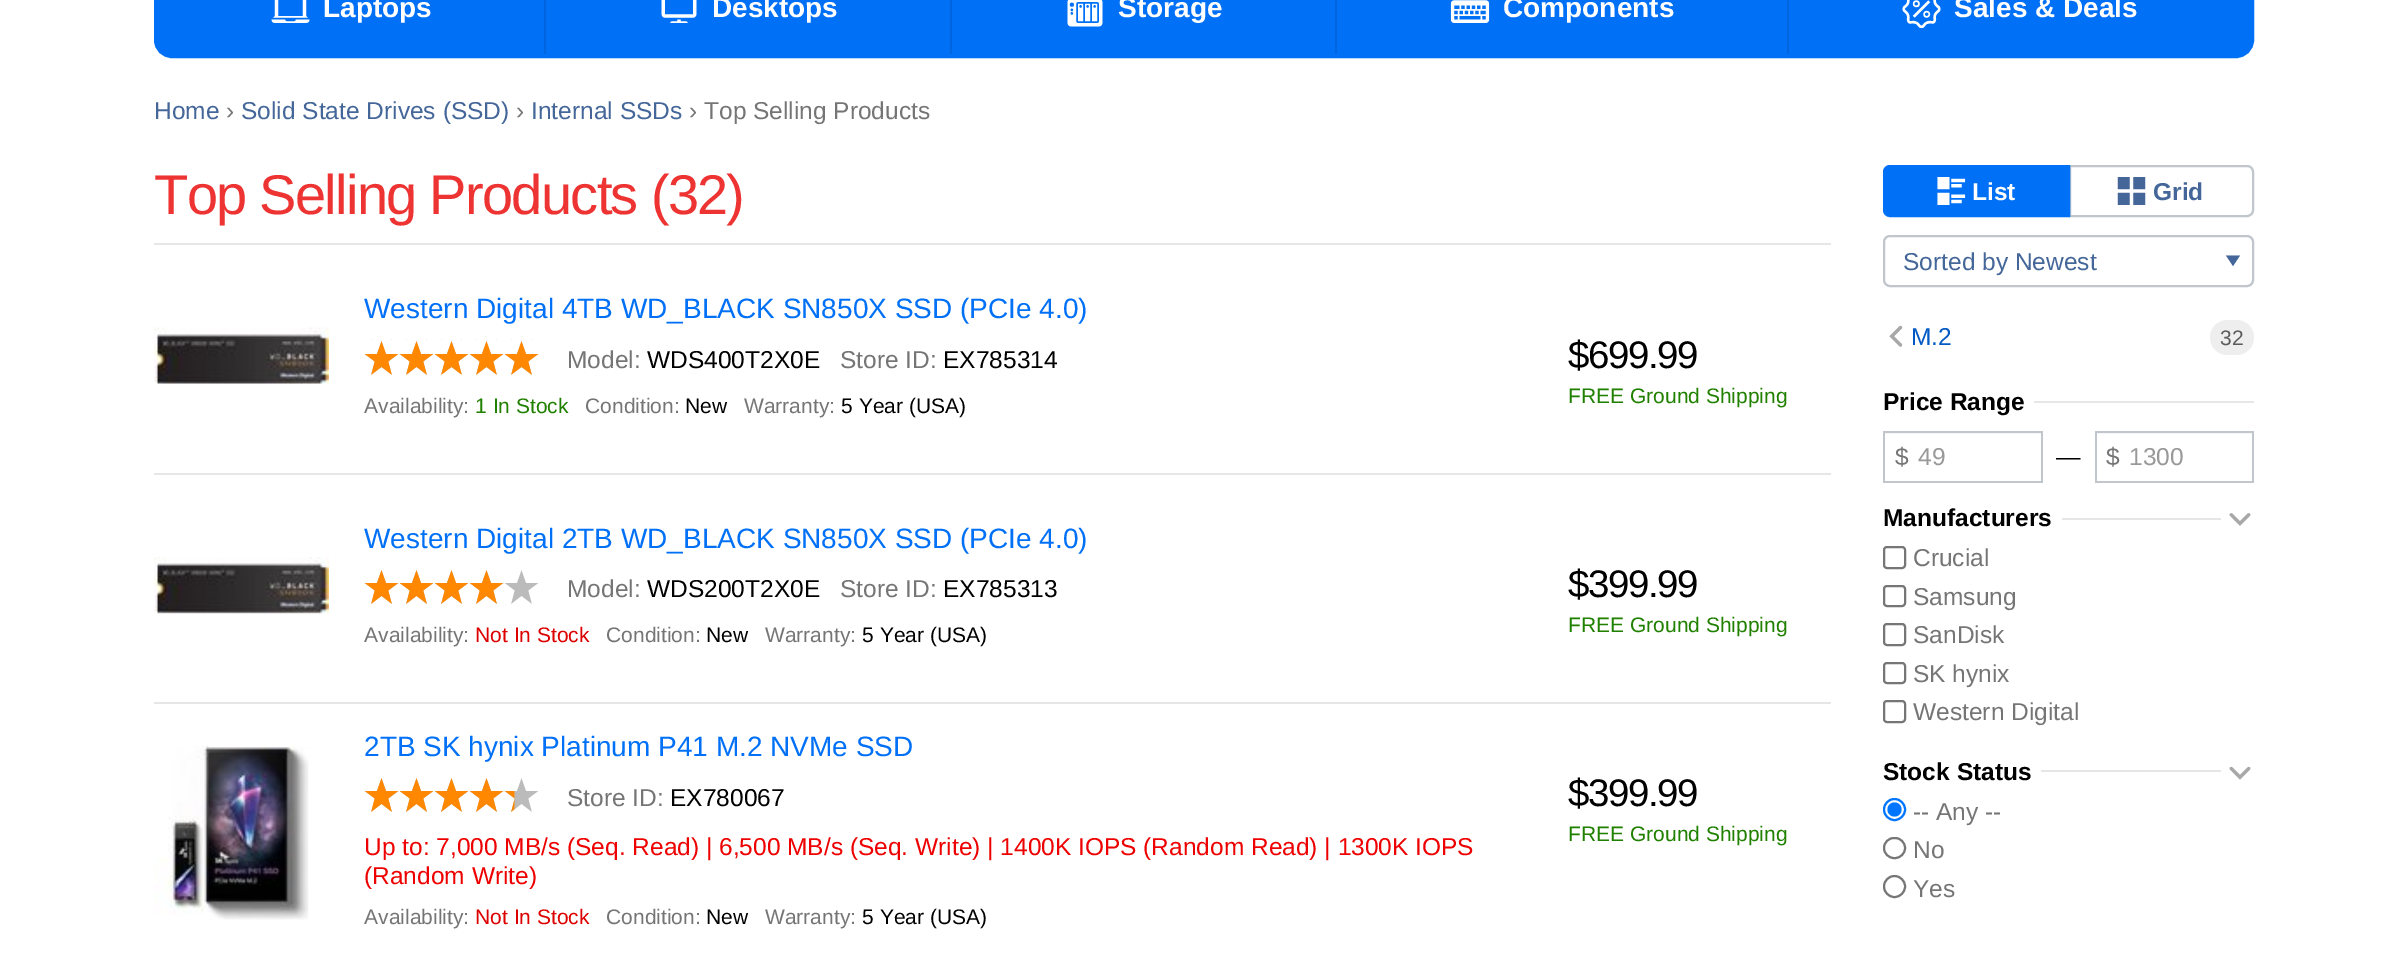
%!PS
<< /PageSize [2408 953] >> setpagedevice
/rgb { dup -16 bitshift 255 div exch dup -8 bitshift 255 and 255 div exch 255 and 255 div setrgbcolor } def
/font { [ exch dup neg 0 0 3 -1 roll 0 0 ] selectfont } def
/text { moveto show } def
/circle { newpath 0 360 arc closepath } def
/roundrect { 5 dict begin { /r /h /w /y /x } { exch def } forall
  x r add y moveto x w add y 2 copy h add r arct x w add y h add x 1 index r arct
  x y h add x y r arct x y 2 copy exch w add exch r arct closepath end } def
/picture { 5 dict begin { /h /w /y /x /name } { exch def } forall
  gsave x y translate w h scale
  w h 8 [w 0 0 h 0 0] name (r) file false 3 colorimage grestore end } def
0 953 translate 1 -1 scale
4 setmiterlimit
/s1 { /LiberationSans-Bold 28 font 16#FFFFFF rgb } def
/s2 { /LiberationSans-Regular 24.5 font 16#446699 rgb } def
/s3 { /LiberationSans-Regular 24.5 font 16#757575 rgb } def
/s4 { /LiberationSans-Regular 28 font 16#0070F7 rgb } def
/s5 { /LiberationSans-Regular 24.5 font 16#000000 rgb } def
/s6 { /LiberationSans-Regular 21 font 16#757575 rgb } def
/s7 { /LiberationSans-Regular 21 font 16#208000 rgb } def
/s8 { /LiberationSans-Regular 21 font 16#000000 rgb } def
/s9 { /LiberationSans-Regular 21 font 16#DD0000 rgb } def
/s10 { /LiberationSans-Regular 24.5 font 16#EE0000 rgb } def
/s11 { /LiberationSans-Bold 24.5 font 16#FFFFFF rgb } def
/s12 { /LiberationSans-Bold 24.5 font 16#446699 rgb } def
/s13 { /LiberationSans-Regular 24.5 font 16#0059C4 rgb } def
/s14 { /LiberationSans-Regular 21 font 16#5B5B5B rgb } def
/s15 { /LiberationSans-Bold 24.5 font 16#000000 rgb } def
/s16 { /LiberationSans-Regular 24.5 font 16#999999 rgb } def
16#FFFFFF rgb
0 0 2408 953 rectfill
16#0070F7 rgb
156 -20 2096 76 16 roundrect gsave fill grestore
4 setlinewidth
stroke
16#0065DE rgb
544 0 2 54 rectfill
(pic1.raw) 271 0 39 23 picture
s1
(Laptops) 323 17 text
16#0065DE rgb
950 0 2 54 rectfill
(pic2.raw) 661 0 36 23 picture
s1
(Desktops) 712 17 text
16#0065DE rgb
1335 0 2 54 rectfill
(pic3.raw) 1067 0 36 27 picture
s1
(Storage) 1118 17 text
16#0065DE rgb
1787 0 2 54 rectfill
(pic4.raw) 1450 0 40 23 picture
s1
(Components) 1503 17 text
(pic5.raw) 1902 0 39 29 picture
(Sales & Deals) 1954 17 text
s2
(Home) 154 119 text
s3
(›) 226 119 text
s2
(Solid State Drives \(SSD\)) 241 119 text
s3
(›) 516 119 text
s2
(Internal SSDs) 531 119 text
s3
(› Top Selling Products) 689 119 text
/LiberationSans-Regular 56 font
16#EE3333 rgb
154 214 moveto -1.7 0 (Top Selling Products \(32\)) ashow
16#E6E6E9 rgb
154 243 1677 2 rectfill
154 473 1677 2 rectfill
(pic6.raw) 154 327 175 58 picture
s4
(Western Digital 4TB WD_BLACK SN850X SSD \(PCIe 4.0\)) 364 318 text
(pic7.raw) 365 339 173 36 picture
(pic8.raw) 364 339 175 36 picture
s3
(Model:) 567 368 text
s5
(WDS400T2X0E) 647 368 text
s3
(Store ID:) 840 368 text
s5
(EX785314) 943 368 text
s6
(Availability:) 364 413 text
s7
(1 In Stock) 475 413 text
s6
(Condition:) 585 413 text
s8
(New) 685 413 text
s6
(Warranty:) 744 413 text
s8
(5 Year \(USA\)) 841 413 text
/LiberationSans-Regular 38.5 font
1568 368 moveto -1.5 0 ($699.99) ashow
s7
(FREE Ground Shipping) 1568 403 text
16#E6E6E9 rgb
154 702 1677 2 rectfill
(pic9.raw) 154 557 175 57 picture
s4
(Western Digital 2TB WD_BLACK SN850X SSD \(PCIe 4.0\)) 364 548 text
(pic10.raw) 365 570 173 34 picture
(pic11.raw) 364 570 140 34 picture
s3
(Model:) 567 597 text
s5
(WDS200T2X0E) 647 597 text
s3
(Store ID:) 840 597 text
s5
(EX785313) 943 597 text
s6
(Availability:) 364 642 text
s9
(Not In Stock) 475 642 text
s6
(Condition:) 606 642 text
s8
(New) 706 642 text
s6
(Warranty:) 765 642 text
s8
(5 Year \(USA\)) 862 642 text
/LiberationSans-Regular 38.5 font
1568 597 moveto -1.5 0 ($399.99) ashow
s7
(FREE Ground Shipping) 1568 632 text
(pic12.raw) 154 745 155 175 picture
s4
(2TB SK hynix Platinum P41 M.2 NVMe SSD) 364 756 text
(pic10.raw) 365 778 173 34 picture
(pic13.raw) 364 778 151 34 picture
s3
(Store ID:) 567 806 text
s5
(EX780067) 670 806 text
s10
(Up to: 7,000 MB/s \(Seq. Read\) | 6,500 MB/s \(Seq. Write\) | 1400K IOPS \(Random Read\) | 1300K IOPS) 364 855 text
(\(Random Write\)) 364 884 text
s6
(Availability:) 364 924 text
s9
(Not In Stock) 475 924 text
s6
(Condition:) 606 924 text
s8
(New) 706 924 text
s6
(Warranty:) 765 924 text
s8
(5 Year \(USA\)) 862 924 text
/LiberationSans-Regular 38.5 font
1568 806 moveto -1.5 0 ($399.99) ashow
s7
(FREE Ground Shipping) 1568 841 text
16#C0C6CC rgb
2 setlinewidth
2070 166 moveto 2247 166 lineto 2250.5 166 2253 168.5 2253 172 curveto 2253 210 lineto 2253 213.5 2250.5 216 2247 216 curveto 2070 216 lineto closepath stroke
16#0070F7 rgb
1890 166 moveto 2069 166 lineto 2069 216 lineto 1890 216 lineto 1886.5 216 1884 213.5 1884 210 curveto 1884 172 lineto 1884 168.5 1886.5 166 1890 166 curveto closepath gsave fill grestore
stroke
(pic14.raw) 1937 177 29 28 picture
s11
(List) 1972 200 text
(pic15.raw) 2117 177 29 28 picture
s12
(Grid) 2153 200 text
16#C0C6CC rgb
1884 236 369 50 6 roundrect stroke
s2
(Sorted by Newest) 1903 270 text
2226 255.5 moveto 2240 255.5 lineto 2233 266 lineto closepath fill
(pic16.raw) 1889 325 14 22 picture
s13
(M.2) 1911 345 text
16#EEEEEE rgb
2210 320 44 35 17.5 roundrect fill
s14
(32) 2220 345 text
s15
(Price Range) 1883 410 text
16#E6E6E9 rgb
2034 401 220 2 rectfill
16#F7F7F7 rgb
1885 433 156 1 rectfill
16#C0C6CC rgb
1883 431 159 2 rectfill
2041 431 2 52 rectfill
1883 481 159 2 rectfill
1883 431 2 52 rectfill
s3
($) 1895 465 text
s16
(49) 1918 465 text
s5
(—) 2056 465 text
16#F7F7F7 rgb
2097 433 155 1 rectfill
16#C0C6CC rgb
2095 431 159 2 rectfill
2252 431 2 52 rectfill
2095 481 159 2 rectfill
2095 431 2 52 rectfill
s3
($) 2106 465 text
s16
(1300) 2129 465 text
s15
(Manufacturers) 1883 526 text
16#E6E6E9 rgb
2062 518 159 2 rectfill
(pic17.raw) 2229 513 22 13 picture
16#767676 rgb
1884 547 21 21 3 roundrect stroke
s3
(Crucial) 1913 566 text
16#767676 rgb
1884 586 21 20 3 roundrect stroke
s3
(Samsung) 1913 605 text
16#767676 rgb
1884 624 21 21 3 roundrect stroke
s3
(SanDisk) 1913 643 text
16#767676 rgb
1884 663 21 20 3 roundrect stroke
s3
(SK hynix) 1913 682 text
16#767676 rgb
1884 701 21 21 3 roundrect stroke
s3
(Western Digital) 1913 720 text
s15
(Stock Status) 1883 780 text
16#E6E6E9 rgb
2041 770 180 2 rectfill
(pic18.raw) 2229 766 22 14 picture
16#0075FF rgb
1894.5 809.5 10.5 circle stroke
1894.5 809.5 7 circle fill
s3
(-- Any --) 1913 820 text
16#767676 rgb
1884 838 21 20 10 roundrect stroke
s3
(No) 1913 858 text
16#767676 rgb
1894.5 886.5 10.5 circle stroke
s3
(Yes) 1913 897 text
showpage
